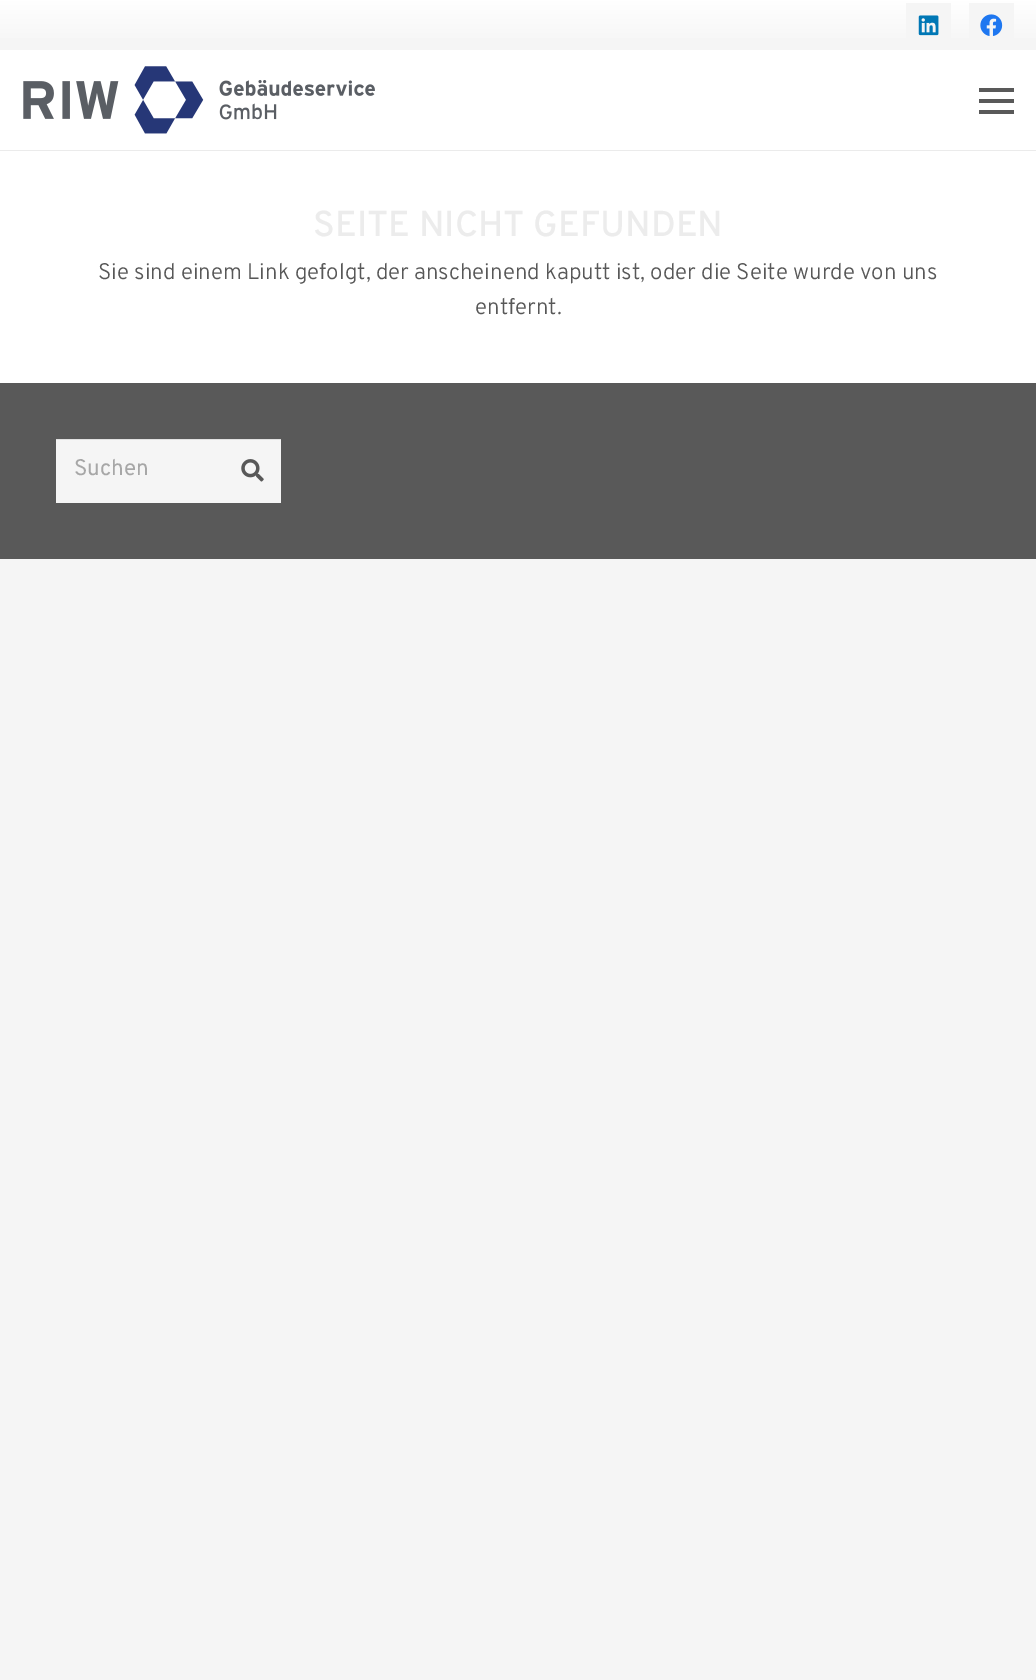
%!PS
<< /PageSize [1036 1680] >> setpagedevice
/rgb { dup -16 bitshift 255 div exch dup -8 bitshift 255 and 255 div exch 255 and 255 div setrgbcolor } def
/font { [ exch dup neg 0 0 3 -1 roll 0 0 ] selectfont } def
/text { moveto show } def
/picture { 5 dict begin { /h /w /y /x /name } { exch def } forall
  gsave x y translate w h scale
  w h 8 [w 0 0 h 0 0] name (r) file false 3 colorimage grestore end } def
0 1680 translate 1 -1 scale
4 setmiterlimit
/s1 { /Overpass-Medium 36 font 16#ECECEC rgb } def
/s2 { /Overpass-Light 22.5 font 16#585858 rgb } def
/s3 { /Overpass-Regular 22.5 font 16#A7A7A7 rgb } def
16#F5F5F5 rgb
0 0 1036 1680 rectfill
16#FFFFFF rgb
0 50 1036 333 rectfill
gsave 0 0 moveto 1036 0 lineto 1036 38 lineto 0 38 lineto closepath clip newpath
<< /ShadingType 2 /ColorSpace /DeviceRGB /Coords [518 50 518 0] /Extend [true true] /Function << /FunctionType 2 /Domain [0 1] /C0 [0.961 0.961 0.961] /C1 [1 1 1] /N 1 >> >> shfill grestore
16#F5F5F5 rgb
906 3 45 35 rectfill
(pic1.raw) 918 15 21 21 picture
969 3 45 35 rectfill
(pic2.raw) 980 14 23 22 picture
16#EBEBEB rgb
0 150 1036 1 rectfill
(pic3.raw) 23 66 352 68 picture
16#595959 rgb
979 99 35 4 rectfill
979 88 35 4 rectfill
979 110 35 4 rectfill
s1
(SEITE NICHT GEFUNDEN) 313 236 text
s2
(Sie sind einem Link gefolgt, der anscheinend kaputt ist, oder die Seite wurde von uns) 98 279 text
(entfernt.) 475 314 text
16#595959 rgb
0 383 1036 176 rectfill
16#F5F5F5 rgb
56 440 225 63 rectfill
16#E1E1E1 rgb
56 439 225 1 rectfill
s3
(Suchen) 74 475 text
(pic4.raw) 241 459 23 23 picture
showpage
